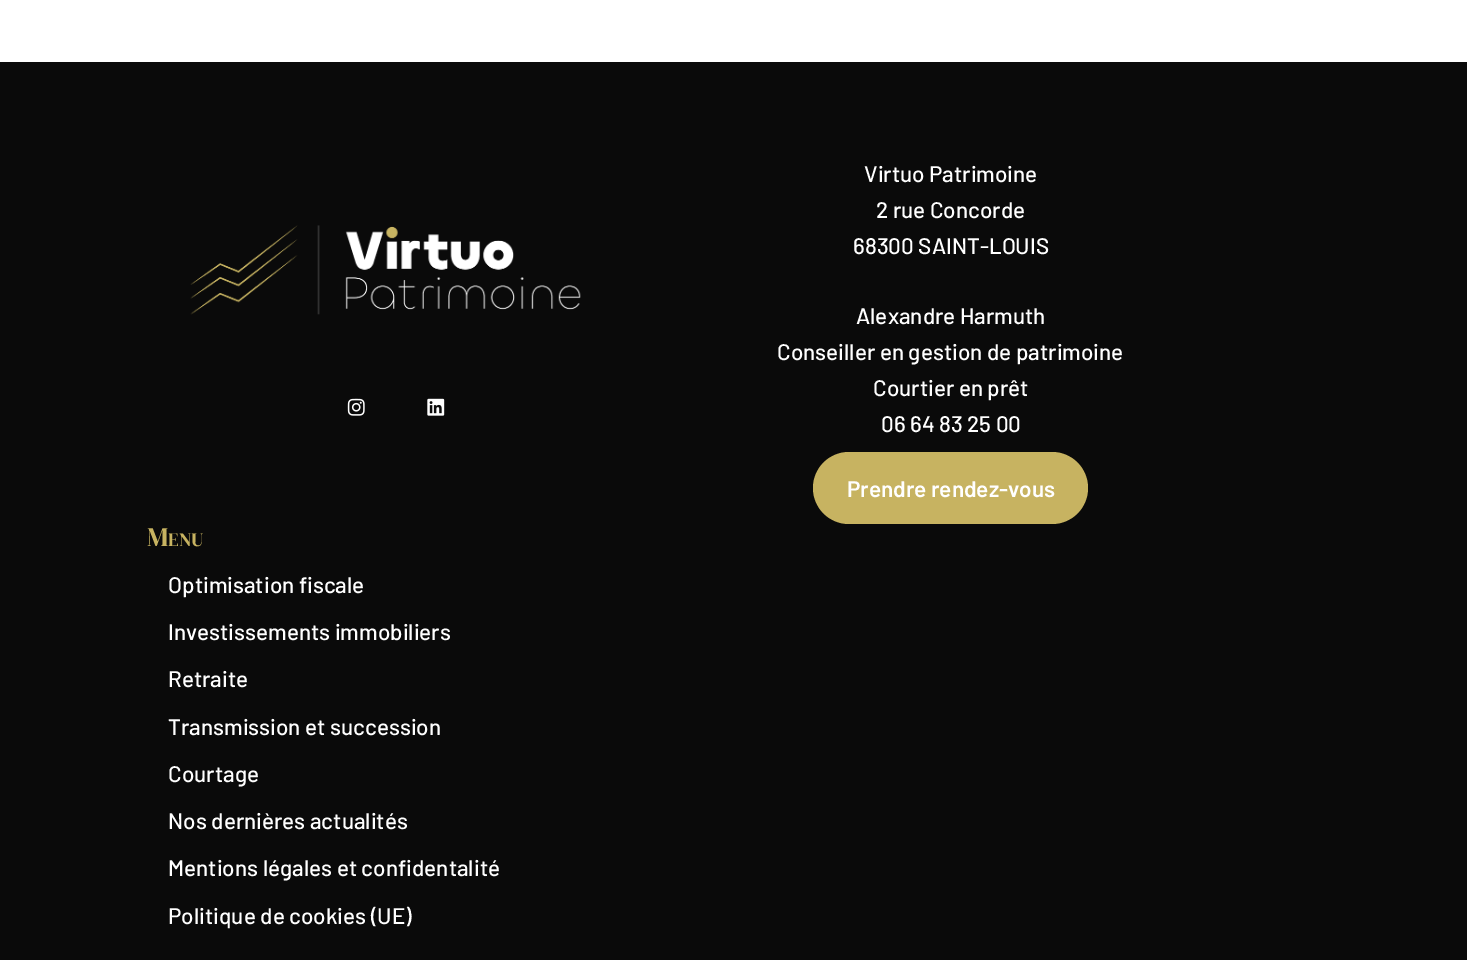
%!PS
<< /PageSize [1467 960] >> setpagedevice
/rgb { dup -16 bitshift 255 div exch dup -8 bitshift 255 and 255 div exch 255 and 255 div setrgbcolor } def
/font { [ exch dup neg 0 0 3 -1 roll 0 0 ] selectfont } def
/text { moveto show } def
/roundrect { 5 dict begin { /r /h /w /y /x } { exch def } forall
  x r add y moveto x w add y 2 copy h add r arct x w add y h add x 1 index r arct
  x y h add x y r arct x y 2 copy exch w add exch r arct closepath end } def
/picture { 5 dict begin { /h /w /y /x /name } { exch def } forall
  gsave x y translate w h scale
  w h 8 [w 0 0 h 0 0] name (r) file false 3 colorimage grestore end } def
0 960 translate 1 -1 scale
4 setmiterlimit
/s1 { /Barlow-Medium 22.5 font 16#FFFFFF rgb } def
/s2 { /Barlow-SemiBold 22.5 font 16#FFFFFF rgb } def
/s3 { /DMSerifDisplay-Regular 27 font 16#C7B361 rgb } def
/s4 { /DMSerifDisplay-Regular 19 font 16#C7B361 rgb } def
16#FFFFFF rgb
0 0 1467 960 rectfill
16#0A0A0A rgb
0 62 1467 898 rectfill
(pic1.raw) 190 225 391 90 picture
(pic2.raw) 347 398 18 18 picture
(pic3.raw) 427 398 18 18 picture
s1
(Virtuo Patrimoine) 864 182 text
(2 rue Concorde) 876 218 text
(68300 SAINT-LOUIS) 853 254 text
(Alexandre Harmuth) 856 324 text
(Conseiller en gestion de patrimoine) 777 360 text
(Courtier en prêt) 873 396 text
(06 64 83 25 00) 881 432 text
16#C7B361 rgb
813 452 275 72 36 roundrect fill
s2
(Prendre rendez-vous) 847 497 text
s3
(M) 147 546 text
s4
(ENU) 168 546 text
s1
(Optimisation fiscale) 168 593 text
(Investissements immobiliers) 168 640 text
(Retraite) 168 687 text
(Transmission et succession) 168 735 text
(Courtage) 168 782 text
(Nos dernières actualités) 168 829 text
(Mentions légales et confidentalité) 168 876 text
(Politique de cookies \(UE\)) 168 924 text
showpage
